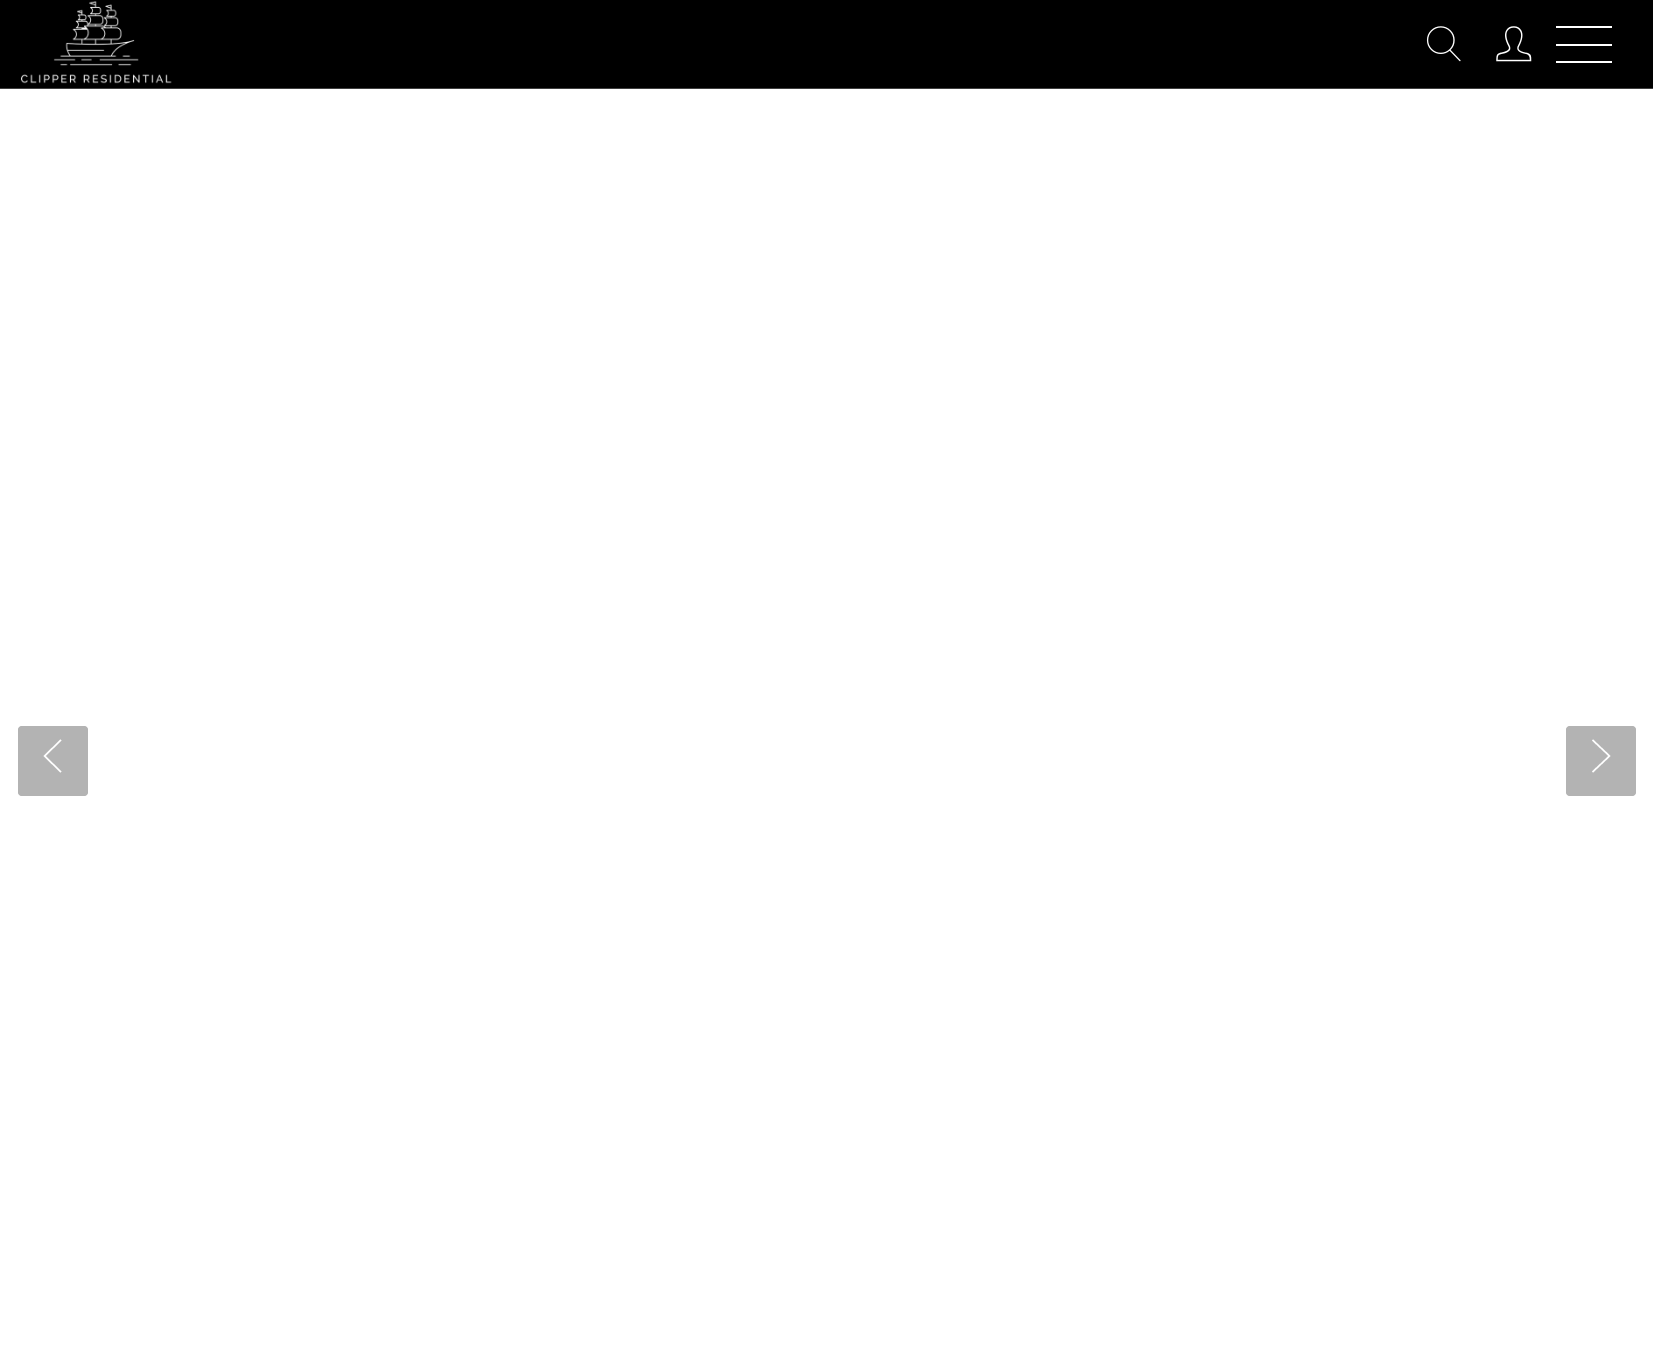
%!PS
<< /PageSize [1653 1347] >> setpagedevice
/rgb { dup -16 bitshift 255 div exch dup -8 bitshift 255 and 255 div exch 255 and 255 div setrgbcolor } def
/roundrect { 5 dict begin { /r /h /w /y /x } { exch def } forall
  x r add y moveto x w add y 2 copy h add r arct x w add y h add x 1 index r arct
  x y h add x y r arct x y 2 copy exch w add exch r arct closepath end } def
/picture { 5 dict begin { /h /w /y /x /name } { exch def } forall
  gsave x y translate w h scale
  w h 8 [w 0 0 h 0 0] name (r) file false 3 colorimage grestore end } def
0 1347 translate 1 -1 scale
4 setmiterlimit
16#FFFFFF rgb
0 0 1653 1347 rectfill
16#000000 rgb
0 0 1653 88 rectfill
16#404040 rgb
0 88 1653 1 rectfill
(pic1.raw) 21 1 151 83 picture
(pic2.raw) 1426 26 35 36 picture
(pic3.raw) 1496 26 36 36 picture
16#FFFFFF rgb
1556 26 56 2 rectfill
1556 44 56 2 rectfill
1556 61 56 2 rectfill
16#B3B3B3 rgb
18 726 70 70 4 roundrect fill
16#FFFFFF rgb
60.5 772.5 moveto 43.5 756 lineto 60.5 739.5 lineto 61.5 740.5 lineto 45.5 756 lineto 61.5 771.5 lineto closepath fill
16#B3B3B3 rgb
1566 726 70 70 4 roundrect fill
16#FFFFFF rgb
1593 739.5 moveto 1610.5 756 lineto 1593 772.5 lineto 1592 771.5 lineto 1608.5 756 lineto 1592 740.5 lineto closepath fill
showpage
